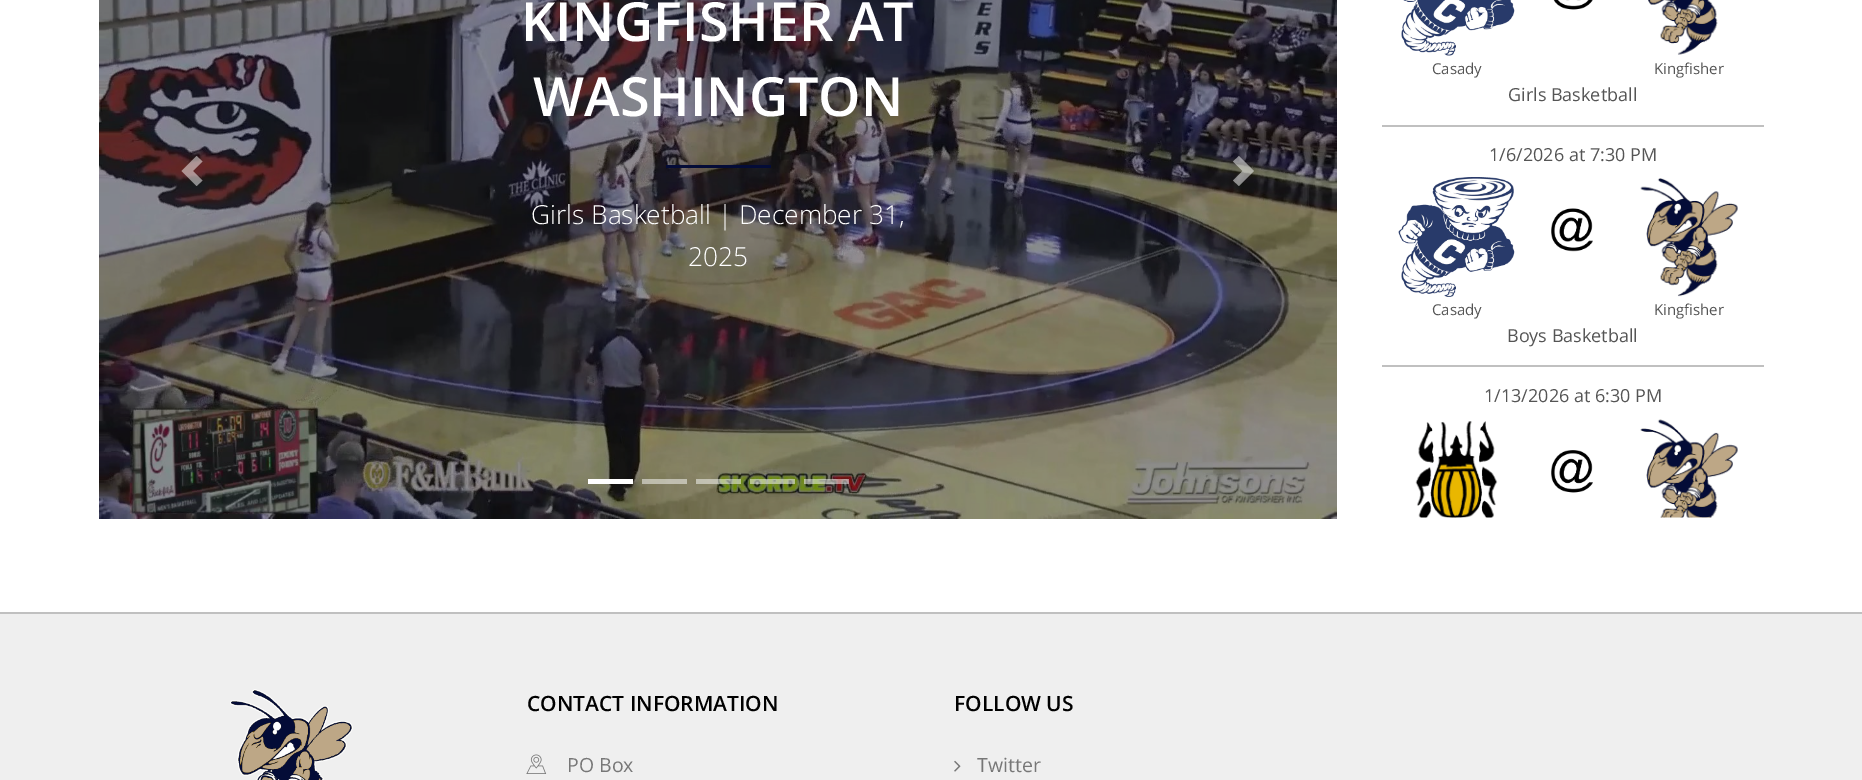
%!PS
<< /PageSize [1862 780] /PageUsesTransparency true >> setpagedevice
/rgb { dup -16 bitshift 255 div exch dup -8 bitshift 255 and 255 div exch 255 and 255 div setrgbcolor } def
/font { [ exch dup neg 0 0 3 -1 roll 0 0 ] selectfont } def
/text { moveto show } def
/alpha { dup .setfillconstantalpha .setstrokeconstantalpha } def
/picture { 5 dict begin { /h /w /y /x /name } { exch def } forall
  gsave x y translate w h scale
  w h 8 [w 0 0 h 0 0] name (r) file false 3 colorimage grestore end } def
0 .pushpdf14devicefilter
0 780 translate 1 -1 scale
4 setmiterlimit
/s1 { /OpenSans-SemiBold 54 font 16#FFFFFF rgb } def
/s2 { /OpenSans-Light 26.25 font 16#FFFFFF rgb } def
/s3 { /OpenSans-Regular 15 font 16#555555 rgb } def
/s4 { /OpenSans-Regular 18 font 16#555555 rgb } def
/s5 { /OpenSans-SemiBold 21 font 16#000000 rgb } def
/s6 { /OpenSans-Regular 19.5 font 16#777777 rgb } def
16#FFFFFF rgb
0 0 1862 780 rectfill
(pic1.raw) 99 0 1238 519 picture
0.5 alpha
196.5 156 moveto 181.5 171 lineto 196.5 186 lineto 202.5 180.5 lineto 193 171 lineto 202.5 161.5 lineto closepath fill
1 alpha
s1
(KINGFISHER AT) 521 41 text
(WASHINGTON) 533 116 text
16#040C37 rgb
666 165 105 3 rectfill
s2
(Girls Basketball | December 31,) 531 224 text
(2025) 688 266 text
0.5 alpha
1239 156 moveto 1233 161.5 lineto 1242.5 171 lineto 1233 180.5 lineto 1239 186 lineto 1254 171 lineto closepath fill
1 alpha
588 479 45 5 rectfill
0.5 alpha
642 479 45 5 rectfill
696 479 45 5 rectfill
750 479 45 5 rectfill
804 479 45 5 rectfill
1 alpha
16#C0C0C0 rgb
1382 125 382 2 rectfill
(pic2.raw) 1553 0 40 10 picture
(pic3.raw) 1401 0 114 56 picture
s3
(Casady) 1432 74 text
(pic4.raw) 1648 0 70 55 picture
(Kingfisher) 1654 74 text
s4
(Girls Basketball) 1508 101 text
16#C0C0C0 rgb
1382 365 382 2 rectfill
s4
(1/6/2026 at 7:30 PM) 1489 161 text
(pic5.raw) 1551 208 42 44 picture
(pic6.raw) 1398 177 117 120 picture
s3
(Casady) 1432 315 text
(pic7.raw) 1640 178 98 119 picture
(Kingfisher) 1654 315 text
s4
(Boys Basketball) 1507 342 text
(1/13/2026 at 6:30 PM) 1484 402 text
(pic8.raw) 1415 421 83 97 picture
(pic9.raw) 1551 450 42 43 picture
(pic10.raw) 1640 419 98 99 picture
16#EFEFEF rgb
0 614 1862 166 rectfill
16#C0C0C0 rgb
0 612 1862 2 rectfill
(pic11.raw) 230 689 123 91 picture
s5
(CONTACT INFORMATION) 527 711 text
(pic12.raw) 526 754 21 20 picture
s6
(PO Box) 567 772 text
s5
(FOLLOW US) 954 711 text
(pic13.raw) 954 760 7 12 picture
s6
(Twitter) 977 772 text
.poppdf14devicefilter showpage
